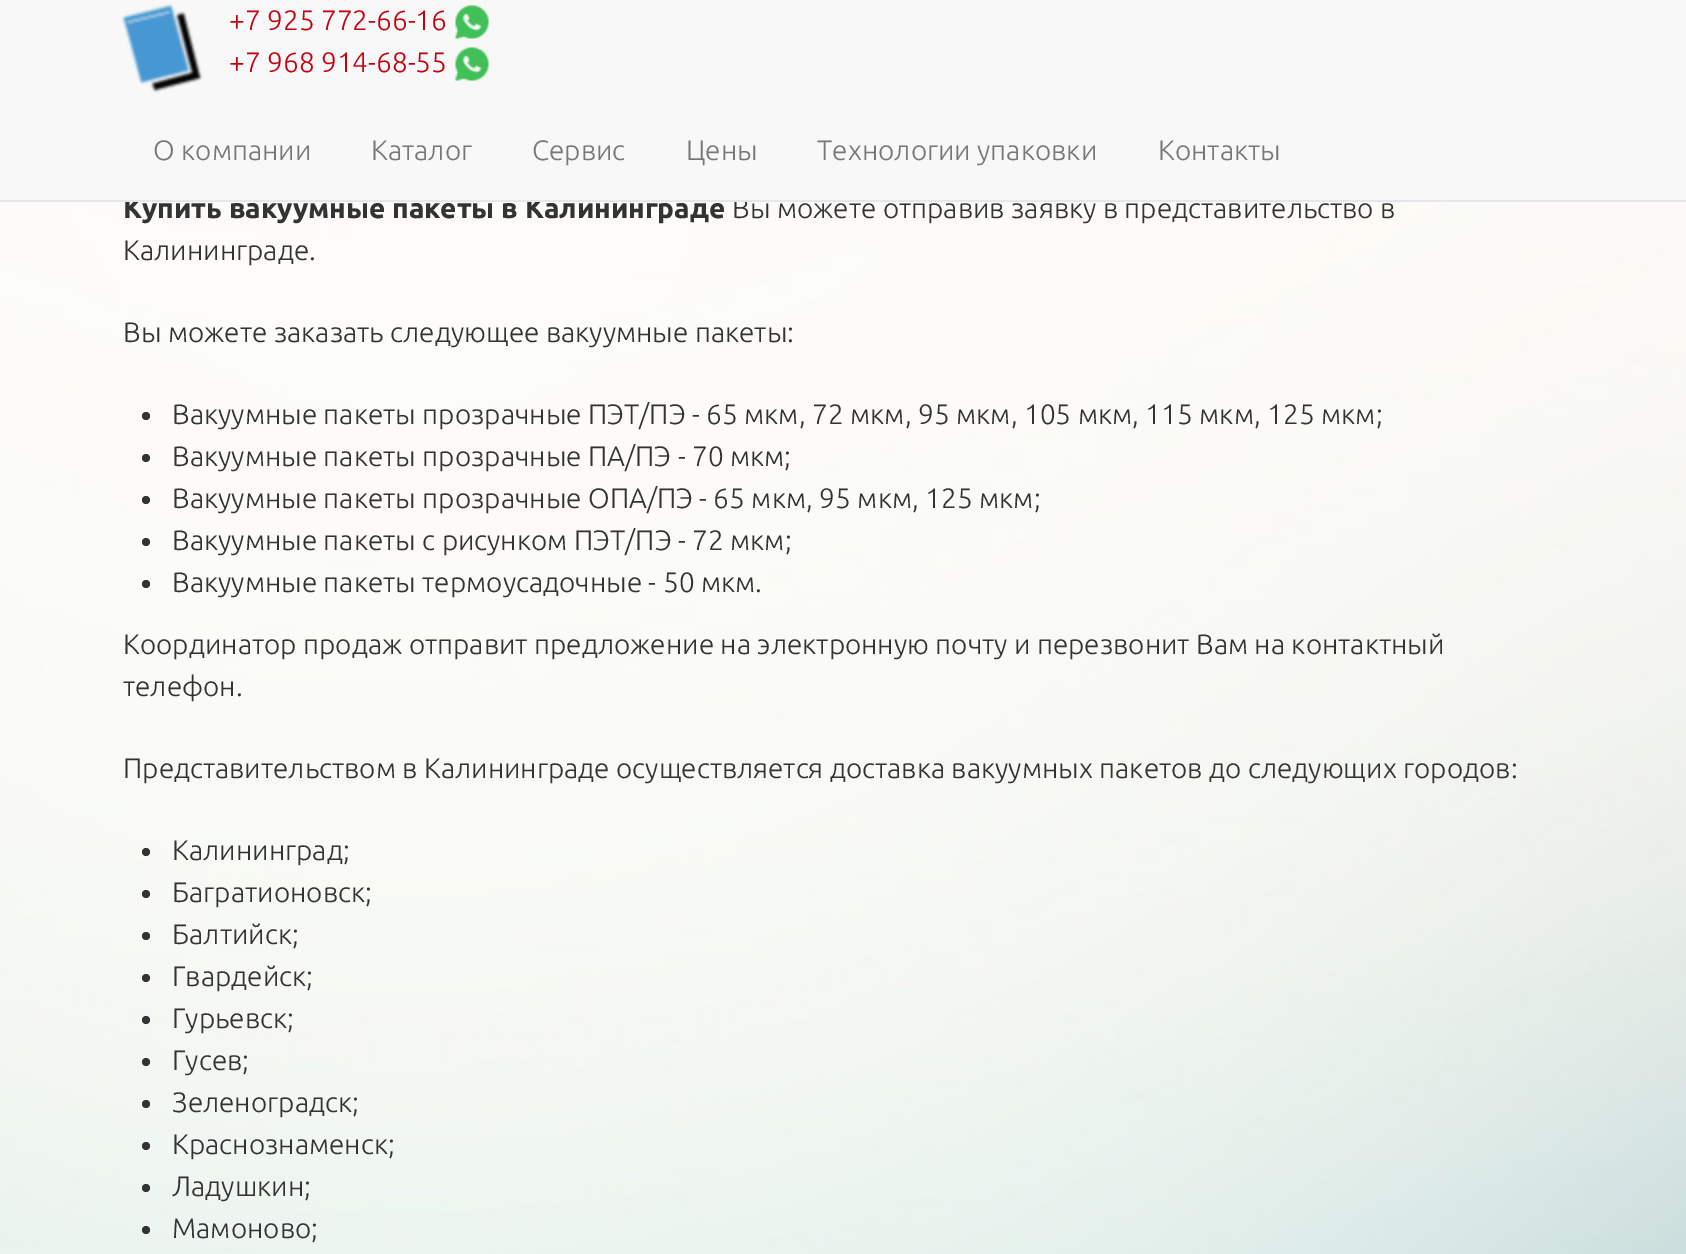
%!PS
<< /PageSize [1686 1254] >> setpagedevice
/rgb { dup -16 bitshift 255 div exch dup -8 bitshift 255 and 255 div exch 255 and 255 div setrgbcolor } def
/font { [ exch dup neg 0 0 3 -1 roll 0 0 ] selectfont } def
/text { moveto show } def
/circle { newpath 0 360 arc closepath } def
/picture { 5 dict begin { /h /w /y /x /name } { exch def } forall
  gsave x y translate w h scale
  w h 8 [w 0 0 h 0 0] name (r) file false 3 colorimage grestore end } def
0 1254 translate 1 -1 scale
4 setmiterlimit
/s1 { /Ubuntu-Bold 28 font 16#333333 rgb } def
/s2 { /Ubuntu-Light 28 font 16#333333 rgb } def
/s3 { /Ubuntu-Light 28 font 16#C7000F rgb } def
/s4 { /Ubuntu-Light 28 font 16#777777 rgb } def
16#FFFFFF rgb
0 0 1686 1254 rectfill
(pic1.raw) 0 202 1686 1052 picture
s1
(Купить вакуумные пакеты в Калининграде) 123 218 text
s2
(Вы можете отправив заявку в представительство в) 732 218 text
16#F8F8F8 rgb
0 0 1686 200 rectfill
16#E7E7E7 rgb
0 200 1686 2 rectfill
(pic2.raw) 121 3 82 90 picture
s3
(+7 925 772-66-16) 229 30 text
(pic3.raw) 455 5 34 34 picture
(+7 968 914-68-55) 229 72 text
(pic3.raw) 455 47 34 34 picture
s4
(О компании) 153 160 text
(Каталог) 371 160 text
(Сервис) 532 160 text
(Цены) 686 160 text
(Технологии упаковки) 817 160 text
(Контакты) 1158 160 text
s2
(Калининграде.) 123 260 text
(Вы можете заказать следующее вакуумные пакеты:) 123 342 text
146 416 4 circle fill
(Вакуумные пакеты прозрачные ПЭТ/ПЭ - 65 мкм, 72 мкм, 95 мкм, 105 мкм, 115 мкм, 125 мкм;) 172 424 text
146 458 4 circle fill
(Вакуумные пакеты прозрачные ПА/ПЭ - 70 мкм;) 172 466 text
146 500 4 circle fill
(Вакуумные пакеты прозрачные ОПА/ПЭ - 65 мкм, 95 мкм, 125 мкм;) 172 508 text
146 542 4 circle fill
(Вакуумные пакеты с рисунком ПЭТ/ПЭ - 72 мкм;) 172 550 text
146 584 4 circle fill
(Вакуумные пакеты термоусадочные - 50 мкм.) 172 592 text
(Координатор продаж отправит предложение на электронную почту и перезвонит Вам на контактный) 123 654 text
(телефон.) 123 696 text
(Представительством в Калининграде осуществляется доставка вакуумных пакетов до следующих городов:) 123 778 text
146 852 4 circle fill
(Калининград;) 172 860 text
146 894 4 circle fill
(Багратионовск;) 172 902 text
146 936 4 circle fill
(Балтийск;) 172 944 text
146 978 4 circle fill
(Гвардейск;) 172 986 text
146 1020 4 circle fill
(Гурьевск;) 172 1028 text
146 1062 4 circle fill
(Гусев;) 172 1070 text
146 1104 4 circle fill
(Зеленоградск;) 172 1112 text
146 1146 4 circle fill
(Краснознаменск;) 172 1154 text
146 1188 4 circle fill
(Ладушкин;) 172 1196 text
146 1230 4 circle fill
(Мамоново;) 172 1238 text
showpage
